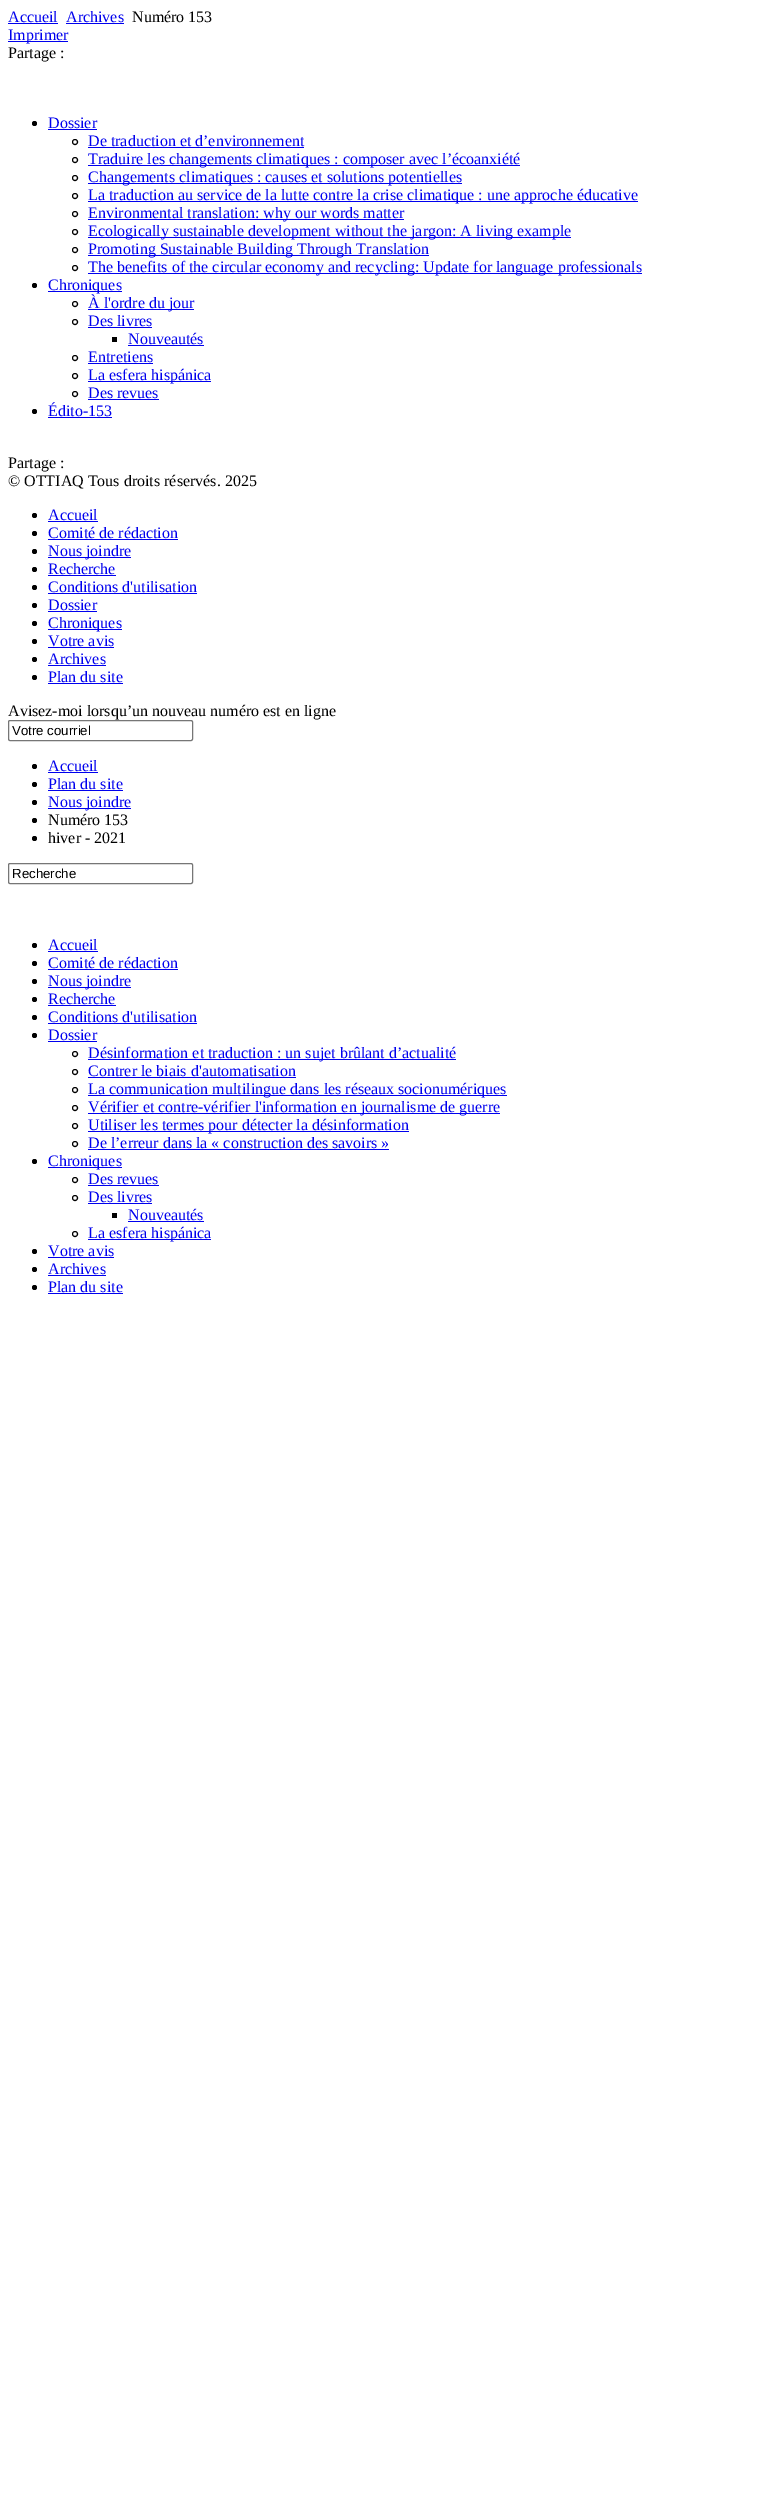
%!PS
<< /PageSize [781 2498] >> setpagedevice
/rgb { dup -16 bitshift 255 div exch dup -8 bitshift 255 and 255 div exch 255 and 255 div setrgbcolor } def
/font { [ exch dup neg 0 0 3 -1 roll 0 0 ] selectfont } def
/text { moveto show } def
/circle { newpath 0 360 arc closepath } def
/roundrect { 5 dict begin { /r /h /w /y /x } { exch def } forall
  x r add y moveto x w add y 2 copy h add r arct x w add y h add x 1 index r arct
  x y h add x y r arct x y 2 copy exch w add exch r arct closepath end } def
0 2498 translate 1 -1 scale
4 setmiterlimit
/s1 { /LiberationSerif-Regular 16 font 16#0000EE rgb } def
/s2 { /LiberationSerif-Regular 16 font 16#000000 rgb } def
/s3 { /LiberationSans-Regular 13.25 font 16#000000 rgb } def
16#FFFFFF rgb
0 0 781 2498 rectfill
s1
(Accueil) 8 22 text
8 23 50 1 rectfill
(Archives) 66 22 text
66 23 58 1 rectfill
s2
(Numéro 153) 132 22 text
16#0000EE rgb
8 41 60 1 rectfill
(Imprimer) 8 40 text
s2
(Partage :) 8 58 text
34.5 123.5 2.5 circle fill
s1
(Dossier) 48 128 text
48 129 49 1 rectfill
16#000000 rgb
75 142 2.5 circle stroke
s1
(De traduction et d’environnement) 88 146 text
88 147 216 1 rectfill
16#000000 rgb
75 160 2.5 circle stroke
16#0000EE rgb
88 165 432 1 rectfill
(Traduire les changements climatiques : composer avec l’écoanxiété) 88 164 text
16#000000 rgb
75 178 2.5 circle stroke
16#0000EE rgb
88 183 374 1 rectfill
(Changements climatiques : causes et solutions potentielles) 88 182 text
16#000000 rgb
75 196 2.5 circle stroke
16#0000EE rgb
88 201 550 1 rectfill
(La traduction au service de la lutte contre la crise climatique : une approche éducative) 88 200 text
16#000000 rgb
75 214 2.5 circle stroke
16#0000EE rgb
88 219 316 1 rectfill
(Environmental translation: why our words matter) 88 218 text
16#000000 rgb
75 232 2.5 circle stroke
16#0000EE rgb
88 237 483 1 rectfill
(Ecologically sustainable development without the jargon: A living example) 88 236 text
16#000000 rgb
75 250 2.5 circle stroke
16#0000EE rgb
88 255 341 1 rectfill
(Promoting Sustainable Building Through Translation) 88 254 text
16#000000 rgb
75 268 2.5 circle stroke
16#0000EE rgb
88 273 554 1 rectfill
(The benefits of the circular economy and recycling: Update for language professionals) 88 272 text
16#000000 rgb
34.5 285.5 2.5 circle fill
16#0000EE rgb
48 291 74 1 rectfill
(Chroniques) 48 290 text
16#000000 rgb
75 304 2.5 circle stroke
16#0000EE rgb
88 309 106 1 rectfill
(À l'ordre du jour) 88 308 text
16#000000 rgb
75 322 2.5 circle stroke
s1
(Des livres) 88 326 text
88 327 64 1 rectfill
16#000000 rgb
112 337 5 5 rectfill
s1
(Nouveautés) 128 344 text
128 345 76 1 rectfill
16#000000 rgb
75 358 2.5 circle stroke
s1
(Entretiens) 88 362 text
88 363 65 1 rectfill
16#000000 rgb
75 376 2.5 circle stroke
16#0000EE rgb
88 381 123 1 rectfill
(La esfera hispánica) 88 380 text
16#000000 rgb
75 394 2.5 circle stroke
s1
(Des revues) 88 398 text
88 399 71 1 rectfill
16#000000 rgb
34.5 411.5 2.5 circle fill
s1
(Édito-153) 48 416 text
48 417 64 1 rectfill
s2
(Partage :) 8 468 text
(© OTTIAQ Tous droits réservés. 2025) 8 486 text
34.5 515.5 2.5 circle fill
s1
(Accueil) 48 520 text
48 521 50 1 rectfill
16#000000 rgb
34.5 533.5 2.5 circle fill
s1
(Comité de rédaction) 48 538 text
48 539 130 1 rectfill
16#000000 rgb
34.5 551.5 2.5 circle fill
16#0000EE rgb
48 557 83 1 rectfill
(Nous joindre) 48 556 text
16#000000 rgb
34.5 569.5 2.5 circle fill
s1
(Recherche) 48 574 text
48 575 68 1 rectfill
16#000000 rgb
34.5 587.5 2.5 circle fill
s1
(Conditions d'utilisation) 48 592 text
48 593 149 1 rectfill
16#000000 rgb
34.5 605.5 2.5 circle fill
s1
(Dossier) 48 610 text
48 611 49 1 rectfill
16#000000 rgb
34.5 623.5 2.5 circle fill
16#0000EE rgb
48 629 74 1 rectfill
(Chroniques) 48 628 text
16#000000 rgb
34.5 641.5 2.5 circle fill
s1
(Votre avis) 48 646 text
48 647 66 1 rectfill
16#000000 rgb
34.5 659.5 2.5 circle fill
s1
(Archives) 48 664 text
48 665 58 1 rectfill
16#000000 rgb
34.5 677.5 2.5 circle fill
s1
(Plan du site) 48 682 text
48 683 75 1 rectfill
s2
(Avisez-moi lorsqu’un nouveau numéro est en ligne) 8 716 text
16#767676 rgb
8.5 720.5 184 20 1.5 roundrect stroke
s3
(Votre courriel) 12 735 text
34.5 766.5 2.5 circle fill
s1
(Accueil) 48 771 text
48 772 50 1 rectfill
16#000000 rgb
34.5 784.5 2.5 circle fill
s1
(Plan du site) 48 789 text
48 790 75 1 rectfill
16#000000 rgb
34.5 802.5 2.5 circle fill
16#0000EE rgb
48 808 83 1 rectfill
(Nous joindre) 48 807 text
16#000000 rgb
34.5 820.5 2.5 circle fill
(Numéro 153) 48 825 text
34.5 838.5 2.5 circle fill
(hiver - 2021) 48 843 text
16#767676 rgb
8.5 863.5 184 20 1.5 roundrect stroke
s3
(Recherche) 12 878 text
34.5 945.5 2.5 circle fill
s1
(Accueil) 48 950 text
48 951 50 1 rectfill
16#000000 rgb
34.5 963.5 2.5 circle fill
s1
(Comité de rédaction) 48 968 text
48 969 130 1 rectfill
16#000000 rgb
34.5 981.5 2.5 circle fill
16#0000EE rgb
48 987 83 1 rectfill
(Nous joindre) 48 986 text
16#000000 rgb
34.5 999.5 2.5 circle fill
s1
(Recherche) 48 1004 text
48 1005 68 1 rectfill
16#000000 rgb
34.5 1017.5 2.5 circle fill
s1
(Conditions d'utilisation) 48 1022 text
48 1023 149 1 rectfill
16#000000 rgb
34.5 1035.5 2.5 circle fill
s1
(Dossier) 48 1040 text
48 1041 49 1 rectfill
16#000000 rgb
75 1054 2.5 circle stroke
16#0000EE rgb
88 1059 368 1 rectfill
(Désinformation et traduction : un sujet brûlant d’actualité) 88 1058 text
16#000000 rgb
75 1072 2.5 circle stroke
s1
(Contrer le biais d'automatisation) 88 1076 text
88 1077 208 1 rectfill
16#000000 rgb
75 1090 2.5 circle stroke
16#0000EE rgb
88 1095 419 1 rectfill
(La communication multilingue dans les réseaux socionumériques) 88 1094 text
16#000000 rgb
75 1108 2.5 circle stroke
16#0000EE rgb
88 1113 412 1 rectfill
(Vérifier et contre-vérifier l'information en journalisme de guerre) 88 1112 text
16#000000 rgb
75 1126 2.5 circle stroke
16#0000EE rgb
88 1131 321 1 rectfill
(Utiliser les termes pour détecter la désinformation) 88 1130 text
16#000000 rgb
75 1144 2.5 circle stroke
s1
(De l’erreur dans la « construction des savoirs ») 88 1148 text
88 1149 301 1 rectfill
16#000000 rgb
34.5 1161.5 2.5 circle fill
16#0000EE rgb
48 1167 74 1 rectfill
(Chroniques) 48 1166 text
16#000000 rgb
75 1180 2.5 circle stroke
s1
(Des revues) 88 1184 text
88 1185 71 1 rectfill
16#000000 rgb
75 1198 2.5 circle stroke
s1
(Des livres) 88 1202 text
88 1203 64 1 rectfill
16#000000 rgb
112 1213 5 5 rectfill
s1
(Nouveautés) 128 1220 text
128 1221 76 1 rectfill
16#000000 rgb
75 1234 2.5 circle stroke
16#0000EE rgb
88 1239 123 1 rectfill
(La esfera hispánica) 88 1238 text
16#000000 rgb
34.5 1251.5 2.5 circle fill
s1
(Votre avis) 48 1256 text
48 1257 66 1 rectfill
16#000000 rgb
34.5 1269.5 2.5 circle fill
s1
(Archives) 48 1274 text
48 1275 58 1 rectfill
16#000000 rgb
34.5 1287.5 2.5 circle fill
s1
(Plan du site) 48 1292 text
48 1293 75 1 rectfill
showpage
